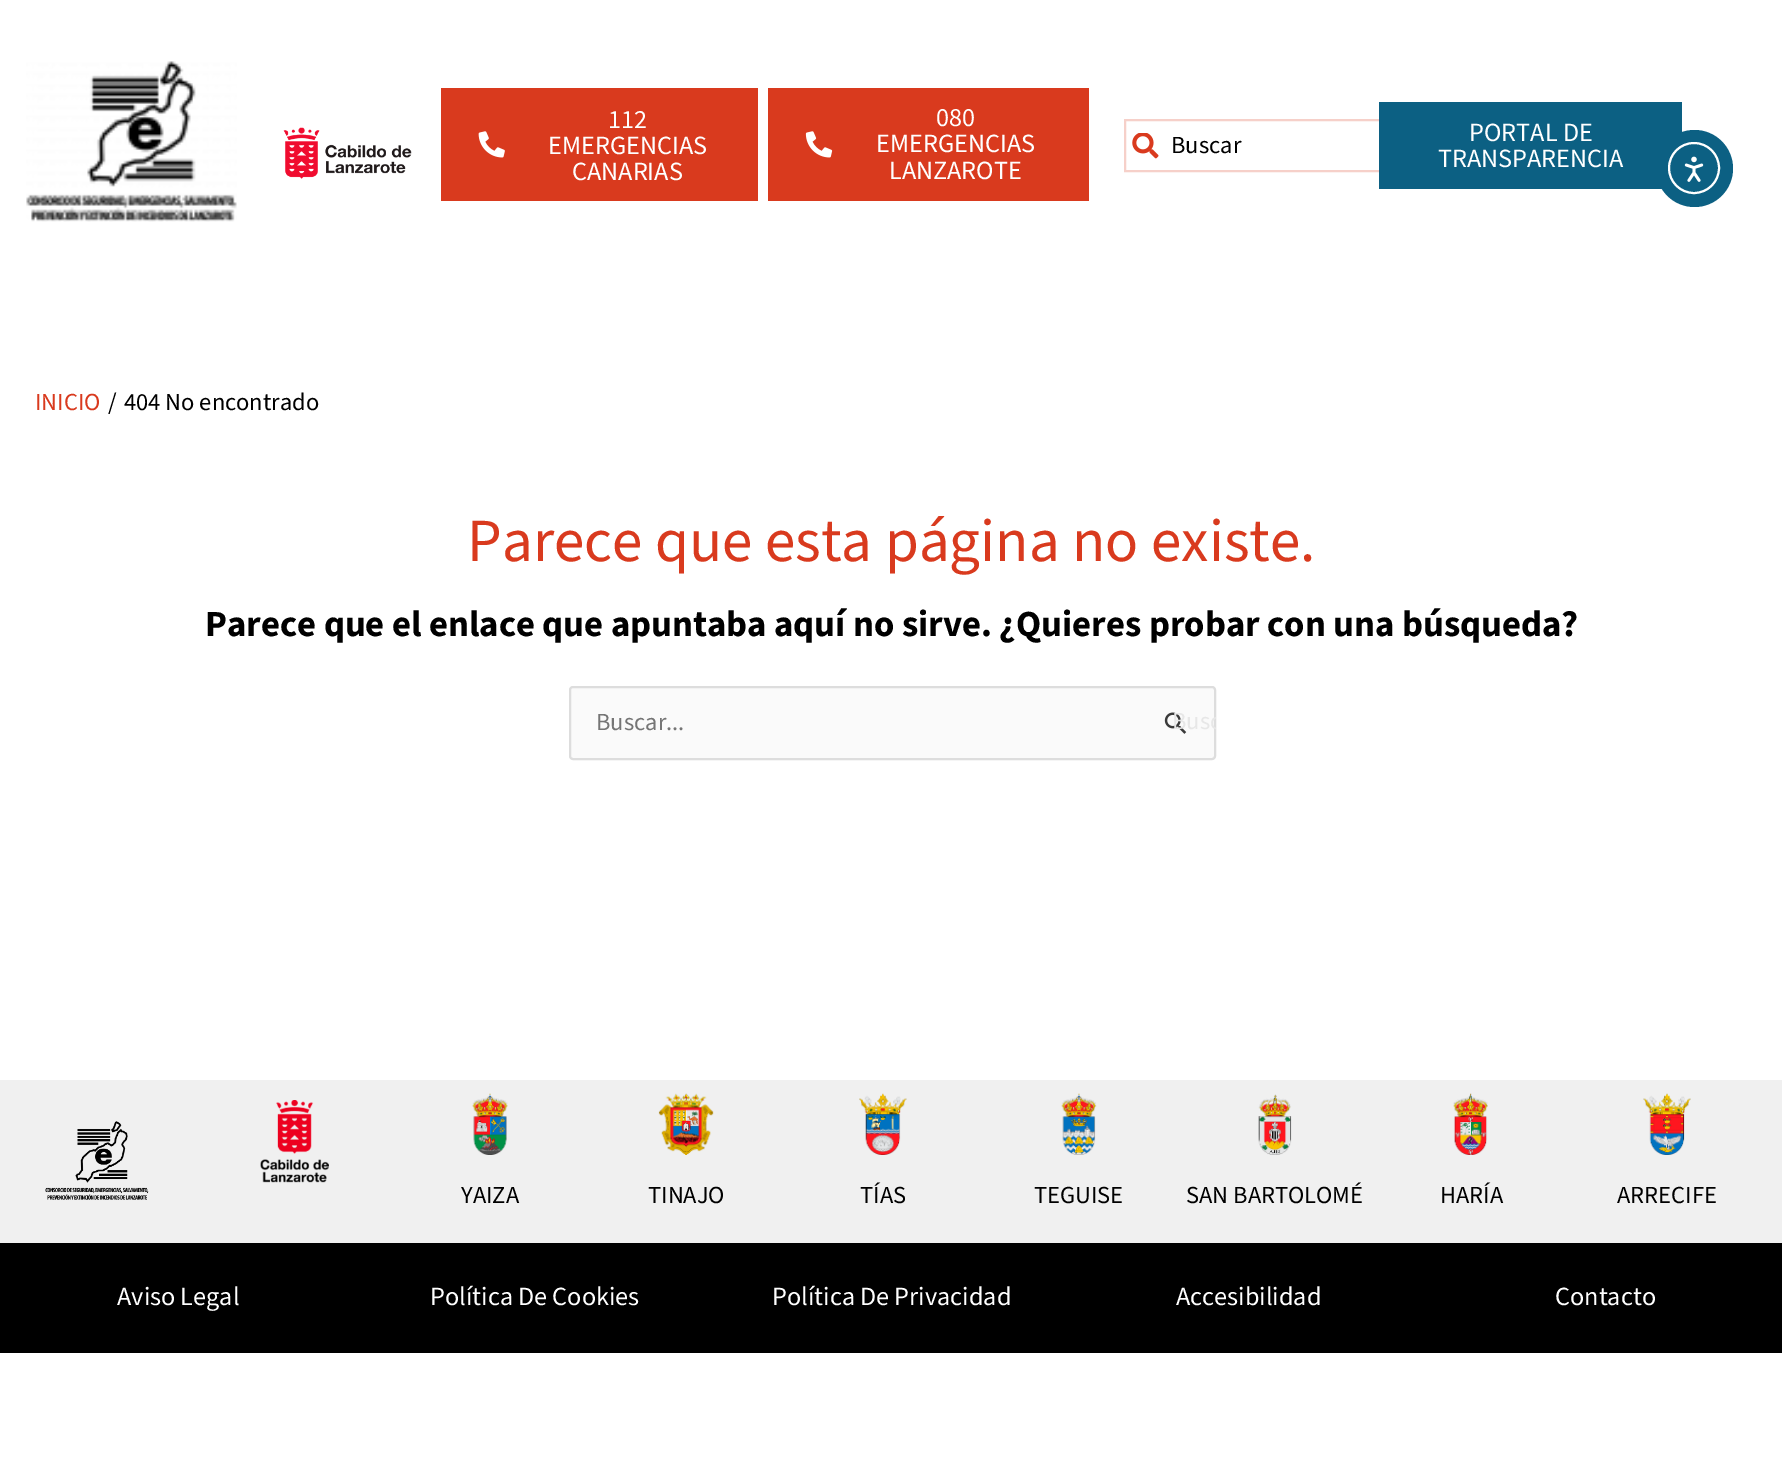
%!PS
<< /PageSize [1782 1463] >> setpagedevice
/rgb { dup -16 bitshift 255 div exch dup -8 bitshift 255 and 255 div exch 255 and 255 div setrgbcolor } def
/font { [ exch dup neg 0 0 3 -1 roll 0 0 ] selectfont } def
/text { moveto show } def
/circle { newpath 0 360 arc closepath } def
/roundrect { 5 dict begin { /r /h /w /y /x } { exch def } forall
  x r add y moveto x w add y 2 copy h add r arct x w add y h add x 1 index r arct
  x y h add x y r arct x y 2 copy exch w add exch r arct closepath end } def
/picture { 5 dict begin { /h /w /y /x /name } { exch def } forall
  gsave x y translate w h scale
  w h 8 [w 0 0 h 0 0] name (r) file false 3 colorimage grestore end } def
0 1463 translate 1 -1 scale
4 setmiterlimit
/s1 { /SourceSansPro-Regular 26.25 font 16#FFFFFF rgb } def
/s2 { /SourceSans3-Regular 26.25 font 16#FFFFFF rgb } def
/s3 { /SourceSansPro-Regular 24.5 font 16#000000 rgb } def
/s4 { /SourceSans3-Regular 24.5 font 16#D93A1E rgb } def
/s5 { /SourceSans3-Regular 24.5 font 16#000000 rgb } def
/s6 { /SourceSans3-Regular 61.25 font 16#D93A1E rgb } def
/s7 { /SourceSans3-Bold 36.75 font 16#000000 rgb } def
/s8 { /SourceSans3-Regular 24.5 font 16#757575 rgb } def
/s9 { /SourceSans3-Regular 24.5 font 16#E7E7E7 rgb } def
16#FFFFFF rgb
0 0 1782 1463 rectfill
(pic1.raw) 26 61 211 161 picture
(pic2.raw) 283 127 129 52 picture
16#D93A1E rgb
441 88 317 113 rectfill
(pic3.raw) 478 131 27 27 picture
s1
(112) 608 128 text
(EMERGENCIAS) 548 154 text
(CANARIAS) 572 180 text
16#D93A1E rgb
768 88 321 113 rectfill
(pic4.raw) 805 131 28 27 picture
s2
(080) 936 126 text
(EMERGENCIAS) 876 152 text
(LANZAROTE) 889 179 text
16#F6D0C9 rgb
2 setlinewidth
1125 120 404 51 rectstroke
(pic5.raw) 1132 133 27 26 picture
s3
(Buscar) 1171 153 text
16#0C6083 rgb
1379 102 303 87 rectfill
s1
(PORTAL DE) 1469 141 text
(TRANSPARENCIA) 1438 167 text
s4
(INICIO) 35 410 text
s5
(/) 108 410 text
(404 No encontrado) 124 410 text
s6
(Parece que esta página no existe.) 467 561 text
s7
(Parece que el enlace que apuntaba aquí no sirve. ¿Quieres probar con una búsqueda?) 205 636 text
16#FAFAFA rgb
570 687 645 72 3 roundrect gsave fill grestore
16#DDDDDD rgb
stroke
s8
(Buscar...) 596 730 text
(pic6.raw) 1164 712 23 22 picture
gsave
1138 686 78 70 4 roundrect clip newpath
s9
(Busc) 1172 729 text
grestore
16#F0F0F0 rgb
0 1080 1782 163 rectfill
(pic7.raw) 45 1121 104 79 picture
(pic8.raw) 260 1100 69 83 picture
(pic9.raw) 472 1093 36 62 picture
s5
(YAIZA) 461 1203 text
(pic10.raw) 658 1093 56 62 picture
(TINAJO) 648 1203 text
(pic11.raw) 859 1093 48 62 picture
(TÍAS) 860 1203 text
(pic12.raw) 1061 1093 36 62 picture
(TEGUISE) 1034 1203 text
(pic13.raw) 1258 1094 34 61 picture
(SAN BARTOLOMÉ) 1186 1203 text
(pic14.raw) 1453 1093 35 62 picture
(HARÍA) 1440 1203 text
(pic15.raw) 1643 1093 48 62 picture
(ARRECIFE) 1617 1203 text
0 1243 1782 110 rectfill
s2
(Aviso Legal) 117 1305 text
(Política De Cookies) 430 1305 text
(Política De Privacidad) 772 1305 text
(Accesibilidad) 1176 1305 text
(Contacto) 1555 1305 text
16#0C6083 rgb
1694.5 168.5 38.5 circle fill
16#FFFFFF rgb
1694 168 25 circle stroke
(pic16.raw) 1684 156 20 26 picture
showpage
